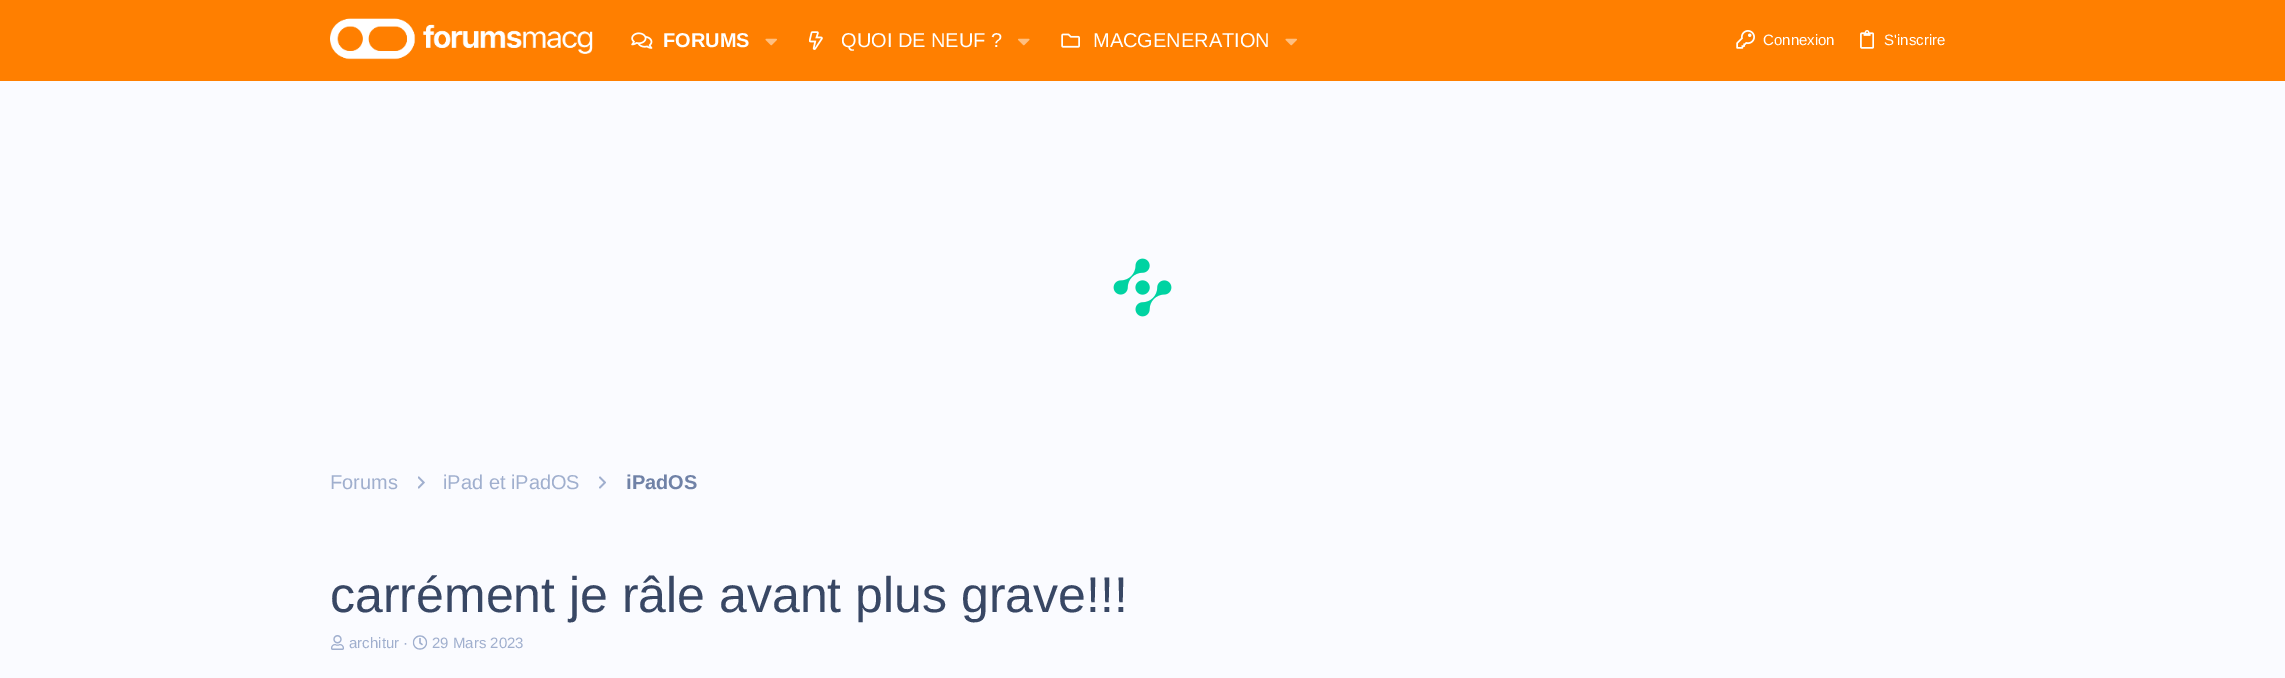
%!PS
<< /PageSize [2285 678] >> setpagedevice
/rgb { dup -16 bitshift 255 div exch dup -8 bitshift 255 and 255 div exch 255 and 255 div setrgbcolor } def
/font { [ exch dup neg 0 0 3 -1 roll 0 0 ] selectfont } def
/text { moveto show } def
/picture { 5 dict begin { /h /w /y /x /name } { exch def } forall
  gsave x y translate w h scale
  w h 8 [w 0 0 h 0 0] name (r) file false 3 colorimage grestore end } def
0 678 translate 1 -1 scale
4 setmiterlimit
/s1 { /LiberationSans-Bold 20 font 16#FFFFFF rgb } def
/s2 { /LiberationSans-Regular 20 font 16#FFFFFF rgb } def
/s3 { /LiberationSans-Regular 15 font 16#FFFFFF rgb } def
/s4 { /LiberationSans-Regular 20 font 16#A0AFCE rgb } def
/s5 { /LiberationSans-Bold 20 font 16#7082A7 rgb } def
/s6 { /LiberationSans-Regular 50 font 16#384764 rgb } def
/s7 { /LiberationSans-Regular 15 font 16#A0AFCE rgb } def
16#FAFBFF rgb
0 0 2285 678 rectfill
16#FF7F00 rgb
0 0 2285 81 rectfill
(pic1.raw) 330 18 263 42 picture
(pic2.raw) 631 32 22 17 picture
s1
(FORUMS) 663 47 text
(pic3.raw) 765 38 12 8 picture
(pic4.raw) 809 31 14 19 picture
s2
(QUOI DE NEUF ?) 841 47 text
(pic5.raw) 1018 38 12 8 picture
(pic6.raw) 1061 33 19 15 picture
(MACGENERATION) 1093 47 text
(pic3.raw) 1285 38 12 8 picture
(pic7.raw) 1736 30 19 19 picture
s3
(Connexion) 1763 45 text
(pic8.raw) 1860 30 14 19 picture
(S'inscrire) 1884 45 text
(pic9.raw) 1113 258 59 59 picture
s4
(Forums) 330 489 text
(pic10.raw) 418 476 7 13 picture
(iPad et iPadOS) 443 489 text
(pic11.raw) 599 476 7 13 picture
s5
(iPadOS) 626 489 text
s6
(carrément je râle avant plus grave!!!) 330 612 text
(pic12.raw) 331 635 13 15 picture
s7
(architur ·) 349 648 text
(pic13.raw) 412 635 16 15 picture
(29 Mars 2023) 432 648 text
showpage
